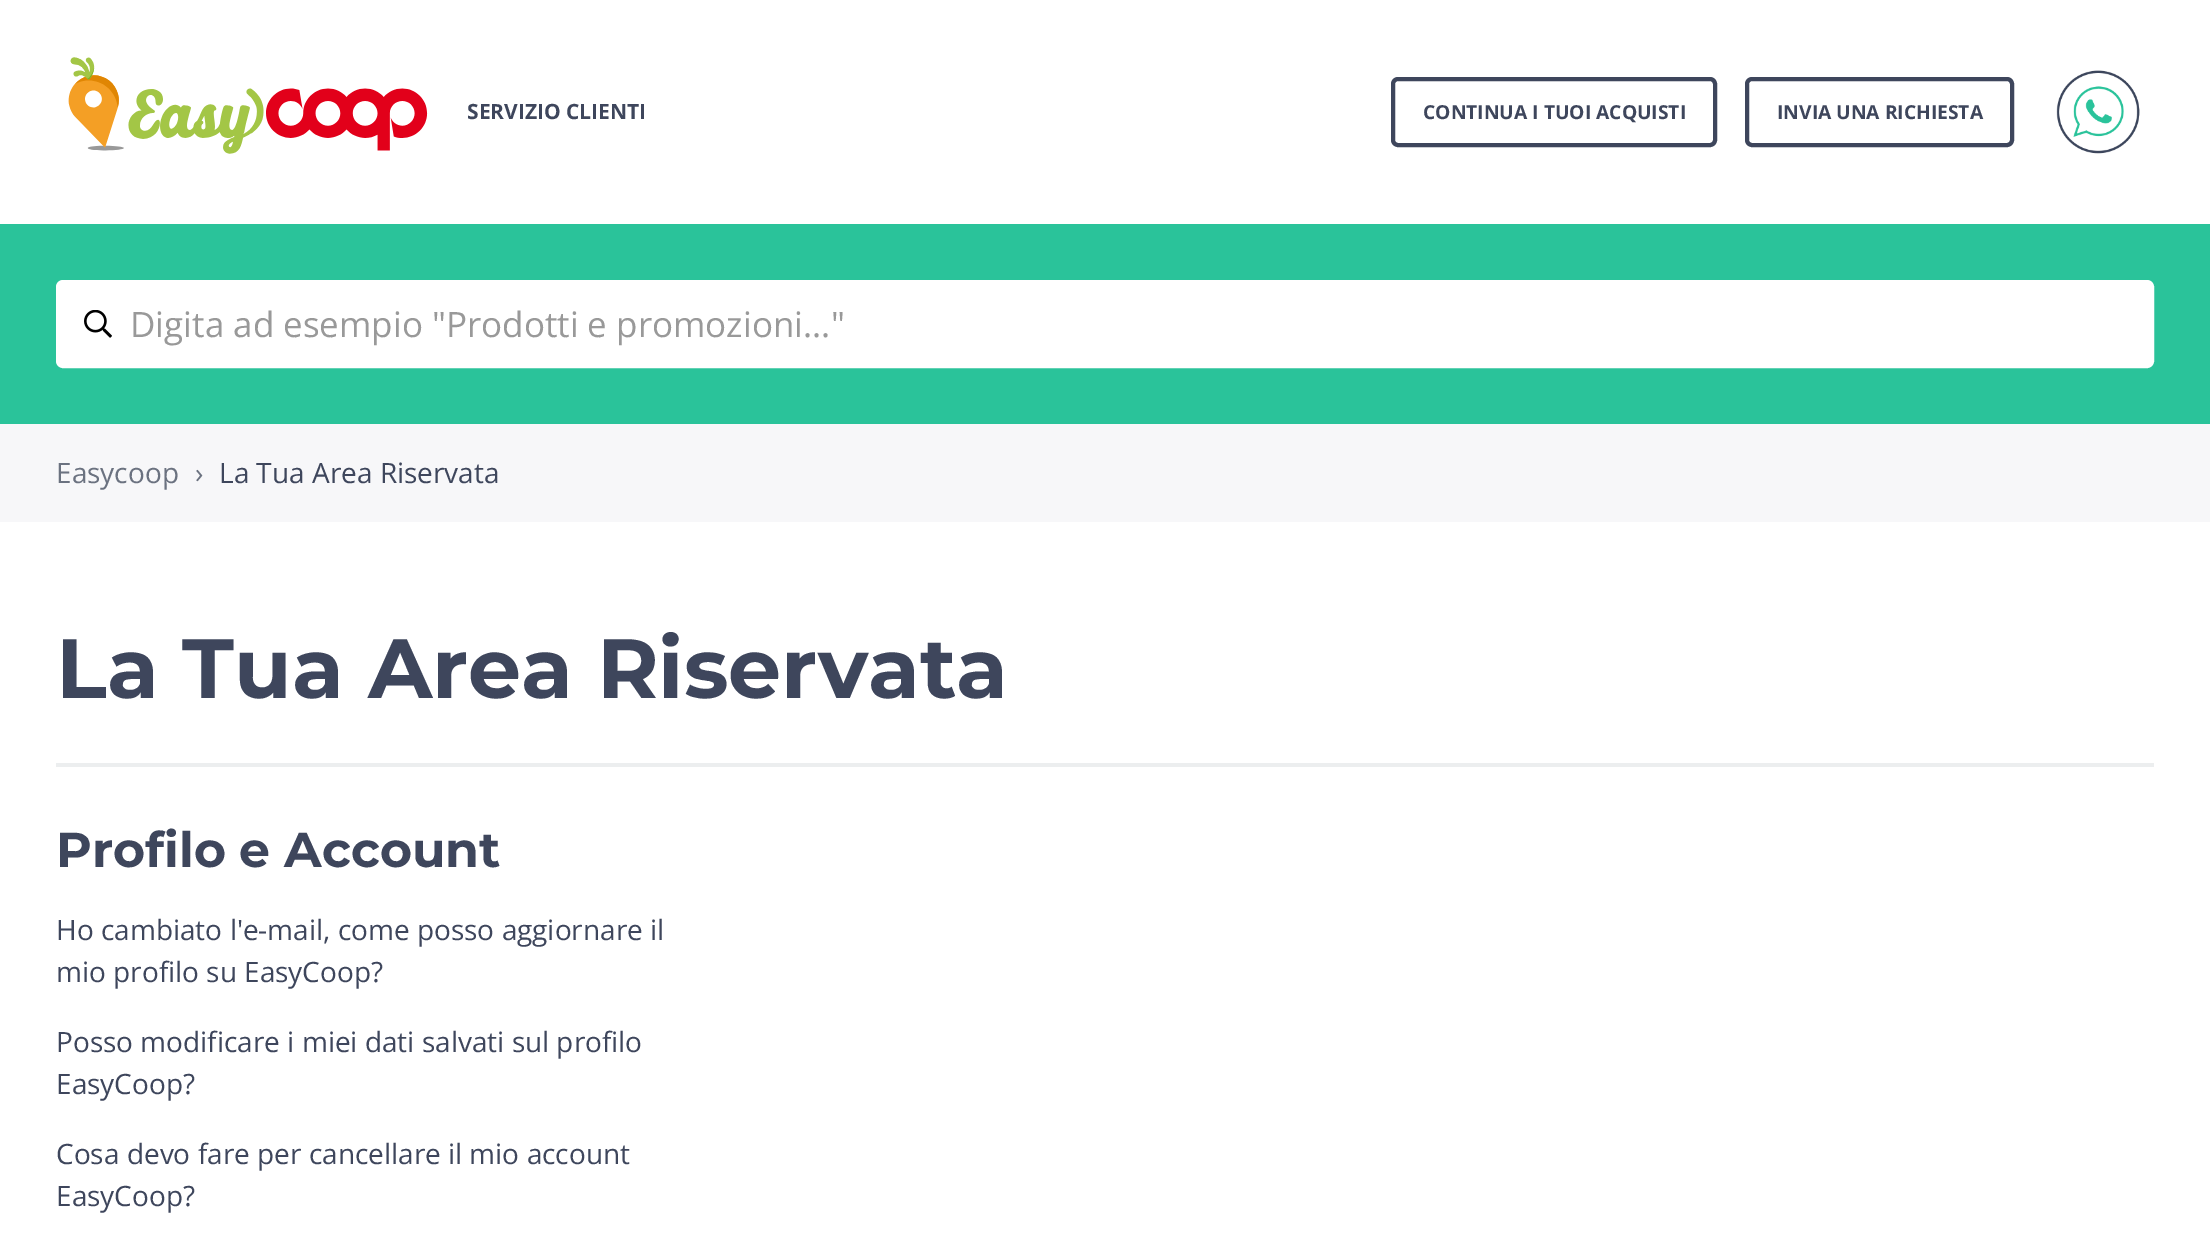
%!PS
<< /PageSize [2210 1250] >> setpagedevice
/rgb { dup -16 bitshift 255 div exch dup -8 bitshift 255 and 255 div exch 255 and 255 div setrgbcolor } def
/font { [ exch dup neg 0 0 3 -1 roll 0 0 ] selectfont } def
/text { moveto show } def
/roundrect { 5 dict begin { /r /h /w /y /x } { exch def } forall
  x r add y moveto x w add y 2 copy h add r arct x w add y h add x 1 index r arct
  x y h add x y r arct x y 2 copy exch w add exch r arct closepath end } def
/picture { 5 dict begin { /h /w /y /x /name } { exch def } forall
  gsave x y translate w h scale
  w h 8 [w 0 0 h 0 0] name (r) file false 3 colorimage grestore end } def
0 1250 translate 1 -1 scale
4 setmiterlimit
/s1 { /OpenSans-Bold 21 font 16#3E465C rgb } def
/s2 { /OpenSans-Bold 19.25 font 16#3E465C rgb } def
/s3 { /OpenSans-Regular 35 font 16#999999 rgb } def
/s4 { /OpenSans-Regular 28 font 16#6B7280 rgb } def
/s5 { /OpenSans-Regular 28 font 16#3E465C rgb } def
/s6 { /Montserrat-Bold 84 font 16#3E465C rgb } def
/s7 { /Montserrat-Bold 49 font 16#3E465C rgb } def
16#FFFFFF rgb
0 0 2210 1250 rectfill
(pic1.raw) 68 57 360 97 picture
s1
(SERVIZIO CLIENTI) 467 119 text
4 setlinewidth
1393 79 322 66 5 roundrect stroke
s2
(CONTINUA I TUOI ACQUISTI) 1423 119 text
1747 79 265 66 5 roundrect stroke
(INVIA UNA RICHIESTA) 1777 119 text
(pic2.raw) 2056 70 84 84 picture
16#2AC39A rgb
0 224 2210 200 rectfill
16#FFFFFF rgb
58 282 2094 84 5 roundrect gsave fill grestore
stroke
(pic3.raw) 84 310 28 28 picture
s3
(Digita ad esempio "Prodotti e promozioni...") 130 337 text
16#F7F7F9 rgb
0 424 2210 98 rectfill
s4
(Easycoop) 56 483 text
(›) 195 483 text
s5
(La Tua Area Riservata) 219 483 text
16#ECEEEF rgb
56 763 2098 4 rectfill
s6
(La Tua Area Riservata) 56 698 text
s7
(Profilo e Account) 56 867 text
s5
(Ho cambiato l'e-mail, come posso aggiornare il) 56 940 text
(mio profilo su EasyCoop?) 56 982 text
(Posso modificare i miei dati salvati sul profilo) 56 1052 text
(EasyCoop?) 56 1094 text
(Cosa devo fare per cancellare il mio account) 56 1164 text
(EasyCoop?) 56 1206 text
showpage
